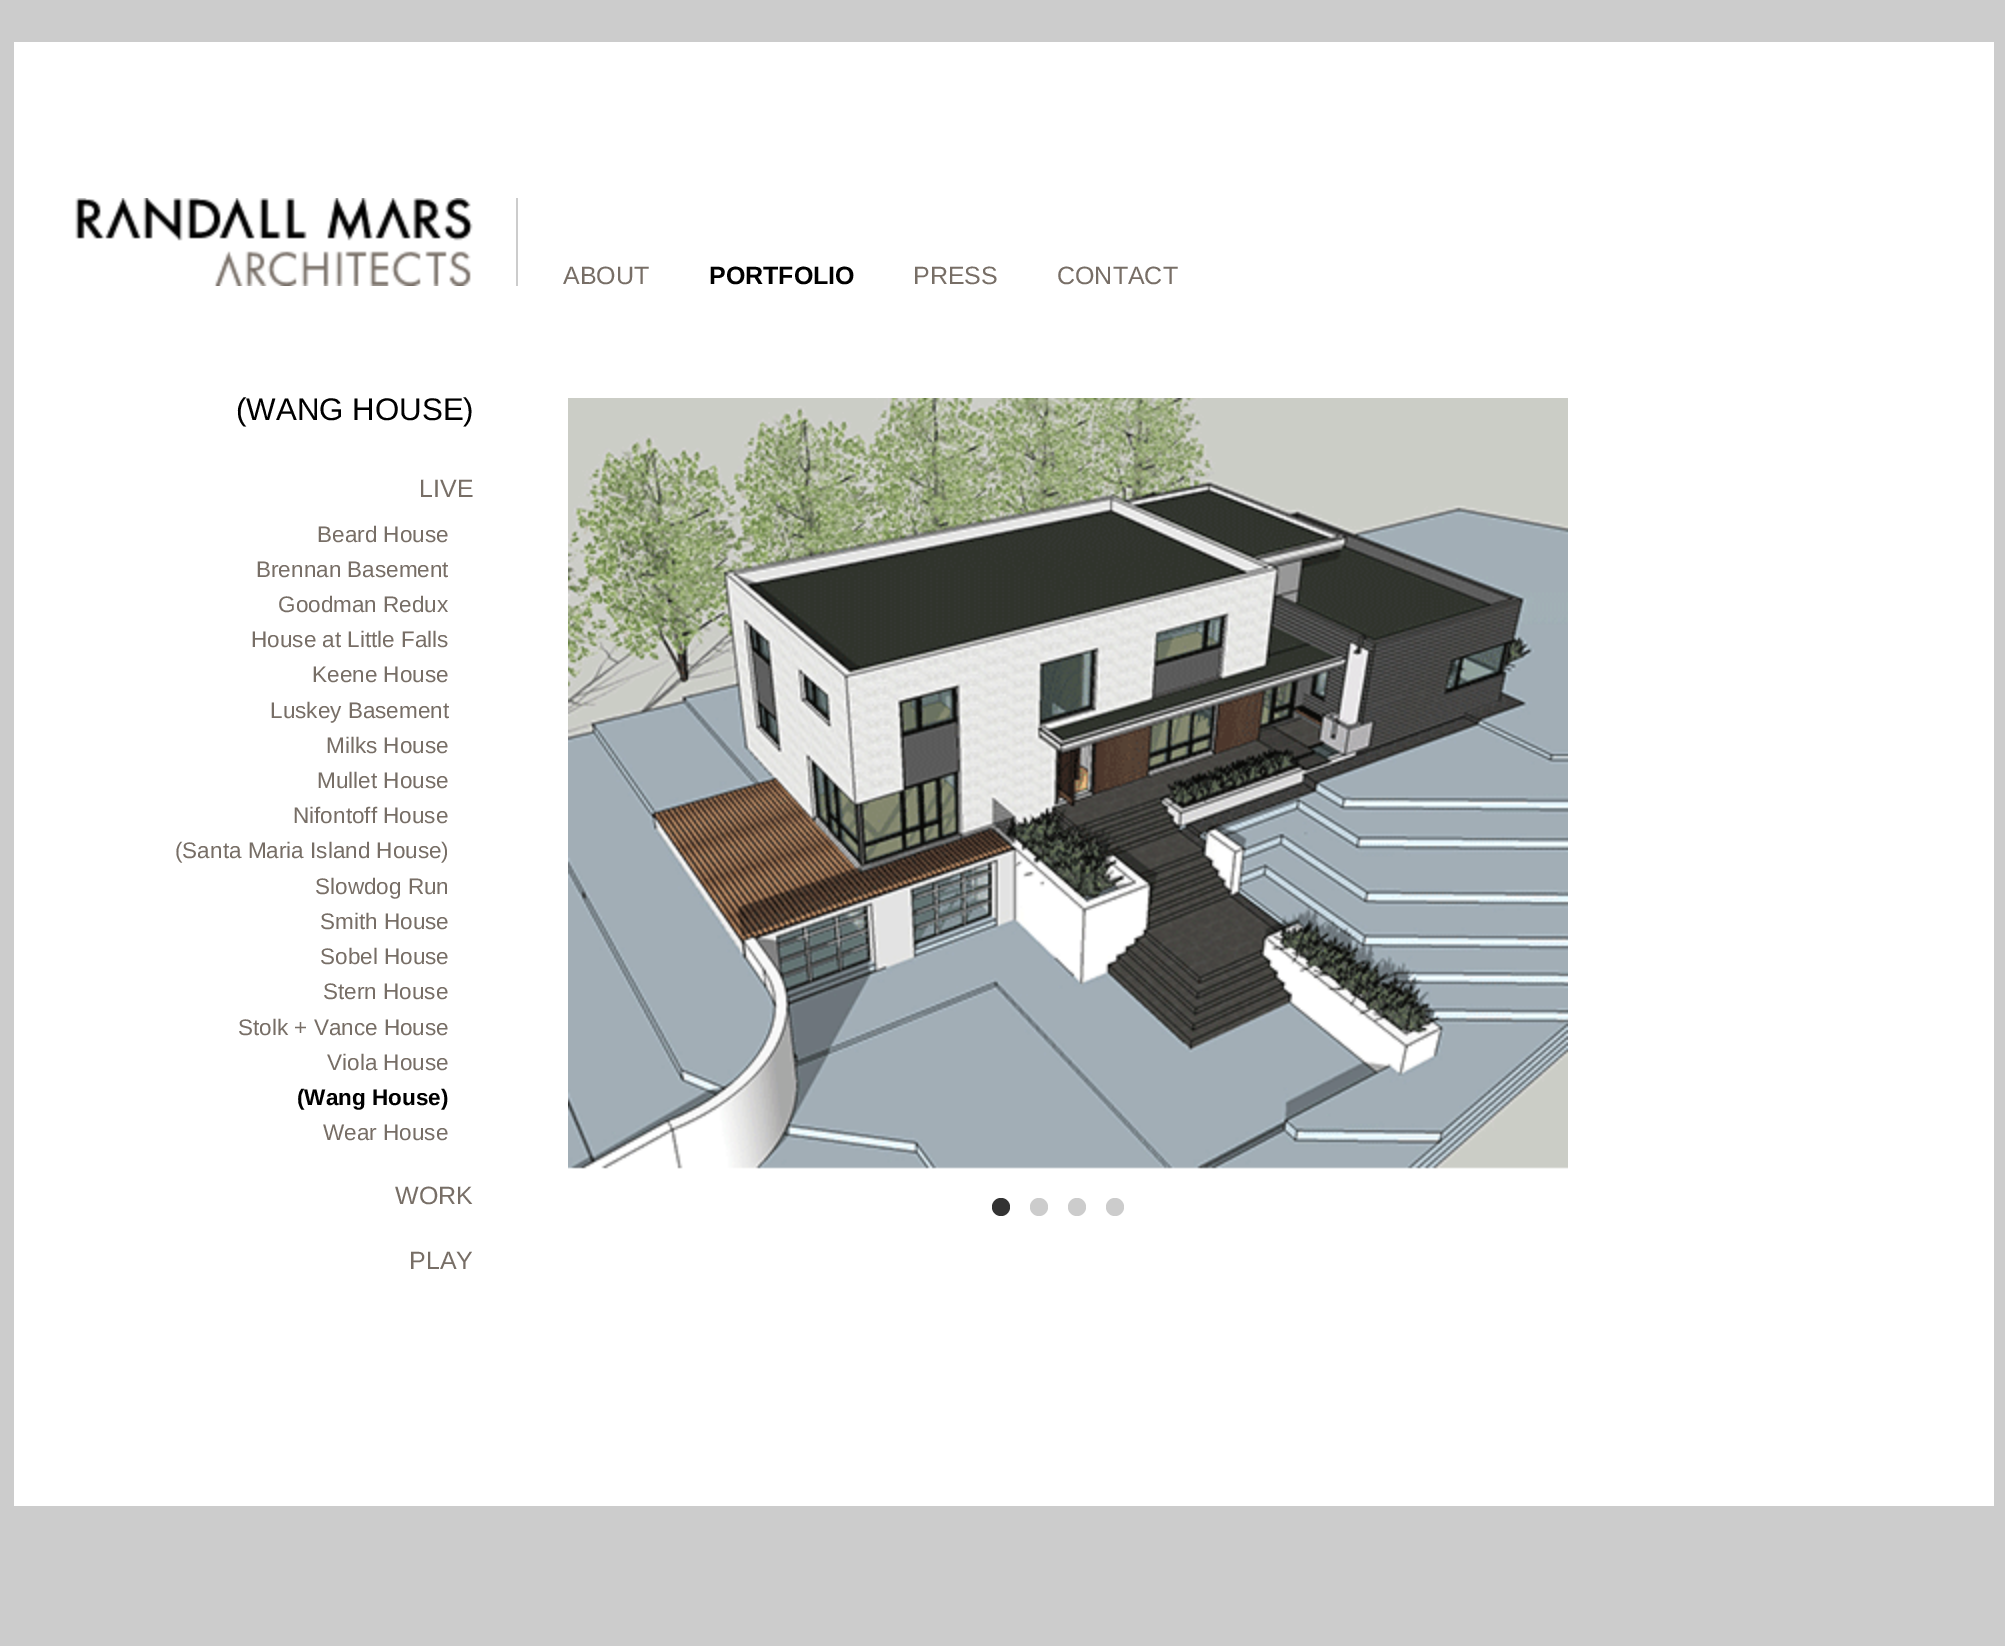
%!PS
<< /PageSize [2005 1646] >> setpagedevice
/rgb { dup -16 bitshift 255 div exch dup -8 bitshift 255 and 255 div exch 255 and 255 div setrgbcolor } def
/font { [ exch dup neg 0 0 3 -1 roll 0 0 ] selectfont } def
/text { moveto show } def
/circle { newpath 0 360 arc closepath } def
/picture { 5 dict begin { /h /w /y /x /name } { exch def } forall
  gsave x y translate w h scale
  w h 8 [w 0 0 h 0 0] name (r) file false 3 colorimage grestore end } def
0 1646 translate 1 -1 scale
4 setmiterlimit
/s1 { /LiberationSans-Regular 25 font 16#776E66 rgb } def
/s2 { /LiberationSans-Bold 25 font 16#000000 rgb } def
/s3 { /LiberationSans-Regular 31.25 font 16#000000 rgb } def
/s4 { /LiberationSans-Regular 22.5 font 16#776E66 rgb } def
/s5 { /LiberationSans-Bold 22.5 font 16#000000 rgb } def
16#CCCCCC rgb
0 0 2005 1646 rectfill
16#FFFFFF rgb
14 42 1980 1464 rectfill
16#CCCCCC rgb
516 198 2 88 rectfill
(pic1.raw) 75 198 398 88 picture
s1
(ABOUT) 563 284 text
s2
(PORTFOLIO) 709 284 text
s1
(PRESS) 913 284 text
(CONTACT) 1057 284 text
s3
(\(WANG HOUSE\)) 236 420 text
s1
(LIVE) 419 497 text
s4
(Beard House) 317 542 text
(Brennan Basement) 256 577 text
(Goodman Redux) 278 612 text
(House at Little Falls) 251 647 text
(Keene House) 312 682 text
(Luskey Basement) 270 718 text
(Milks House) 326 753 text
(Mullet House) 317 788 text
(Nifontoff House) 293 823 text
(\(Santa Maria Island House\)) 175 858 text
(Slowdog Run) 315 894 text
(Smith House) 320 929 text
(Sobel House) 320 964 text
(Stern House) 323 999 text
(Stolk + Vance House) 238 1035 text
(Viola House) 327 1070 text
s5
(\(Wang House\)) 297 1105 text
s4
(Wear House) 323 1140 text
s1
(WORK) 395 1204 text
(PLAY) 409 1269 text
(pic2.raw) 568 398 1000 771 picture
16#333333 rgb
1001 1207 9 circle fill
16#CCCCCC rgb
1039 1207 9 circle fill
1077 1207 9 circle fill
1115 1207 9 circle fill
showpage
